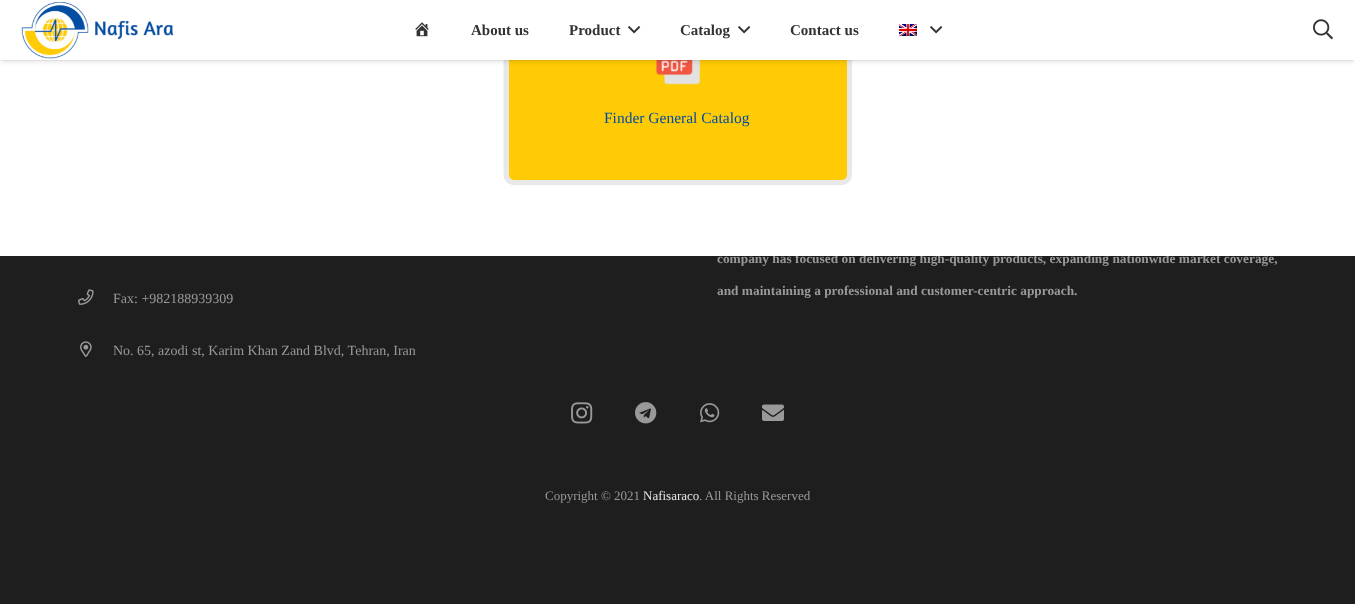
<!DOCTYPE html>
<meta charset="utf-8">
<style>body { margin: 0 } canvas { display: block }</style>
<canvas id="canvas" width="1355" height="604"></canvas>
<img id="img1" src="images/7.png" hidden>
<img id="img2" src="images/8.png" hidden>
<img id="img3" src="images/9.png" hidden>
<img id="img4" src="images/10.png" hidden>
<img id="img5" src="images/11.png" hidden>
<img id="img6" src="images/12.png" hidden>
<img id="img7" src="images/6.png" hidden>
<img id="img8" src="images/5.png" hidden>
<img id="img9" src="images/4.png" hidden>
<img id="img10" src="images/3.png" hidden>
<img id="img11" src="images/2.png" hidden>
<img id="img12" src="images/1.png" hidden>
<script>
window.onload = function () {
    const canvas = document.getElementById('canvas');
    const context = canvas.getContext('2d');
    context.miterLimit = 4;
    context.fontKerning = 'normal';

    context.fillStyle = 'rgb(30, 30, 30)';
    context.fillRect(0, 0, 1355, 604);
    context.drawImage(document.getElementById('img1'), 78, 289, 16, 16);
    context.drawImage(document.getElementById('img2'), 80, 341, 12, 16);
    context.drawImage(document.getElementById('img3'), 571, 402, 22, 22);
    context.drawImage(document.getElementById('img4'), 635, 402, 22, 22);
    context.drawImage(document.getElementById('img5'), 700, 403, 20, 20);
    context.drawImage(document.getElementById('img6'), 762, 404, 22, 17);
    context.wordSpacing = '0.1px';
    context.font = 'bold 13.35px Liberation Serif';
    context.fillStyle = 'rgb(153, 153, 153)';
    context.fillText('company has focused on delivering high-quality products, expanding nationwide market coverage,', 717, 263);
    context.fillStyle = 'rgb(255, 255, 255)';
    context.fillRect(0, 60, 1355, 196);
    context.beginPath();
    context.moveTo(841.5, -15);
    context.lineTo(513.5, -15);
    context.bezierCurveTo(509.5, -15, 506, -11.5, 506, -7.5);
    context.lineTo(506, 175);
    context.bezierCurveTo(506, 179, 509.5, 182.5, 513.5, 182.5);
    context.lineTo(841.5, 182.5);
    context.bezierCurveTo(845.5, 182.5, 849, 179, 849, 175);
    context.lineTo(849, -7.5);
    context.bezierCurveTo(849, -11.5, 845.5, -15, 841.5, -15);
    context.closePath();
    context.strokeStyle = 'rgb(232, 232, 232)';
    context.lineWidth = 5;
    context.stroke();
    context.fillStyle = 'rgb(255, 203, 5)';
    context.beginPath();
    context.roundRect(506.5, -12.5, 343, 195, 7.5);
    context.fill();
    context.stroke();
    context.drawImage(document.getElementById('img7'), 656, 60, 45, 25);
    context.fillStyle = 'rgba(0, 0, 0, 0.1)';
    context.filter = 'blur(2.5px)';
    context.beginPath();
    context.rect(1, 4, 1353, 58);
    context.fill();
    context.filter = 'none';
    context.fillStyle = 'rgba(0, 0, 0, 0.05)';
    context.filter = 'blur(0.5px)';
    context.beginPath();
    context.rect(1, 3, 1353, 58);
    context.fill();
    context.filter = 'none';
    context.fillStyle = 'rgb(255, 255, 255)';
    context.fillRect(0, 0, 1355, 60);
    context.drawImage(document.getElementById('img8'), 1313, 19, 20, 21);
    context.drawImage(document.getElementById('img9'), 899, 24, 18, 12);
    context.drawImage(document.getElementById('img10'), 930, 26, 13, 8);
    context.wordSpacing = '0px';
    context.font = 'bold 15px Liberation Serif';
    context.fillStyle = 'rgb(51, 51, 51)';
    context.fillText('Contact us', 790, 35);
    context.fillText('Catalog', 680, 35);
    context.drawImage(document.getElementById('img10'), 738, 26, 13, 8);
    context.fillText('Product', 569, 35);
    context.drawImage(document.getElementById('img10'), 628, 26, 13, 8);
    context.fillText('About us', 471, 35);
    context.drawImage(document.getElementById('img11'), 415, 22, 14, 15);
    context.drawImage(document.getElementById('img12'), 21, 2, 153, 57);
    context.font = '15.5px Liberation Serif';
    context.fillStyle = 'rgb(3, 78, 162)';
    context.fillText('Finder General Catalog', 604, 123);
    context.font = 'bold 13.35px Liberation Serif';
    context.fillStyle = 'rgb(153, 153, 153)';
    context.fillText('and maintaining a professional and customer-centric approach.', 717, 295);
    context.font = '14px Liberation Serif';
    context.fillText('Fax: +982188939309', 113, 303);
    context.fillText('No. 65, azodi st, Karim Khan Zand Blvd, Tehran, Iran', 113, 355);
    context.font = '13px Liberation Serif';
    context.fillText('Copyright © 2021', 545, 500);
    context.fillStyle = 'rgb(229, 229, 229)';
    context.fillText('Nafisaraco', 643, 500);
    context.fillStyle = 'rgb(153, 153, 153)';
    context.fillText('. All Rights Reserved', 699, 500);
};
</script>
